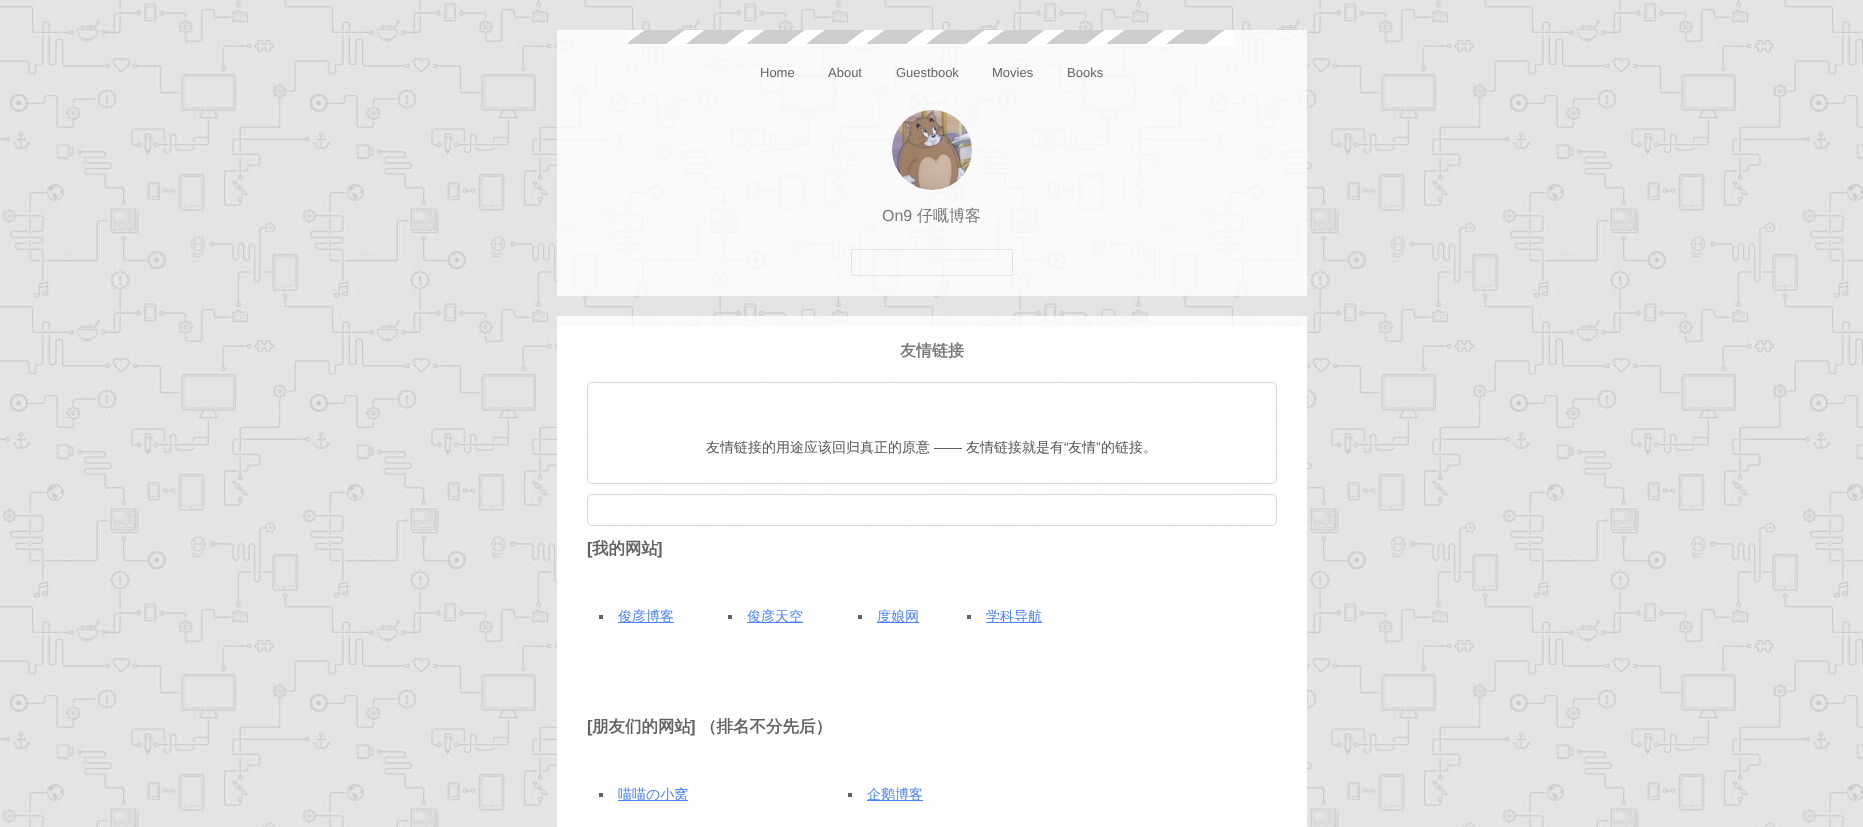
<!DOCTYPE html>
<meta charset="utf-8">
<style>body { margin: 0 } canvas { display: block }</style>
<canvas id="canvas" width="1863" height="827"></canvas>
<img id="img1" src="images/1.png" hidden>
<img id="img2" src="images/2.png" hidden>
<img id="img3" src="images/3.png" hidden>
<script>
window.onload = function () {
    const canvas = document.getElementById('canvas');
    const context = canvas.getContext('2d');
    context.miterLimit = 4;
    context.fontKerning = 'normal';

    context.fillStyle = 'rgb(255, 255, 255)';
    context.fillRect(0, 0, 1863, 827);
    context.drawImage(document.getElementById('img1'), 0, 0, 1863, 827);
    context.fillStyle = 'rgba(255, 255, 255, 0.8)';
    context.fillRect(557, 30, 750, 50);
    context.drawImage(document.getElementById('img2'), 628, 30, 607, 16);
    context.fillRect(557, 80, 750, 216);
    context.drawImage(document.getElementById('img3'), 892, 110, 80, 80);
    context.beginPath();
    context.roundRect(851.5, 249.5, 161, 26, 1.5);
    context.strokeStyle = 'rgba(221, 221, 221, 0.8)';
    context.stroke();
    context.fillRect(557, 316, 750, 511);
    context.fillRect(557, 326, 750, 501);
    context.beginPath();
    context.roundRect(587.5, 382.5, 689, 101, 4.5);
    context.strokeStyle = 'rgb(214, 214, 214)';
    context.stroke();
    context.beginPath();
    context.roundRect(587.5, 494.5, 689, 31, 4.5);
    context.stroke();
    context.fillStyle = 'rgb(98, 98, 98)';
    context.fillRect(599, 615, 4, 4);
    context.fillStyle = 'rgb(78, 132, 255)';
    context.fillRect(618, 622, 56, 1);
    context.fillStyle = 'rgb(98, 98, 98)';
    context.fillRect(728, 615, 4, 4);
    context.fillStyle = 'rgb(78, 132, 255)';
    context.fillRect(747, 622, 56, 1);
    context.fillStyle = 'rgb(98, 98, 98)';
    context.fillRect(858, 615, 4, 4);
    context.fillStyle = 'rgb(73, 127, 250)';
    context.fillRect(877, 622, 42, 1);
    context.fillStyle = 'rgb(98, 98, 98)';
    context.fillRect(967, 615, 4, 4);
    context.fillStyle = 'rgb(78, 132, 255)';
    context.fillRect(986, 622, 56, 1);
    context.fillStyle = 'rgb(98, 98, 98)';
    context.fillRect(599, 793, 4, 4);
    context.fillStyle = 'rgb(78, 132, 255)';
    context.fillRect(618, 800, 70, 1);
    context.fillStyle = 'rgb(98, 98, 98)';
    context.fillRect(848, 793, 4, 4);
    context.fillStyle = 'rgb(73, 127, 250)';
    context.fillRect(867, 800, 56, 1);
    context.font = '13px Liberation Sans';
    context.fillStyle = 'rgb(99, 99, 99)';
    context.fillText('Home', 760, 77);
    context.fillText('About', 828, 77);
    context.fillText('Guestbook', 896, 77);
    context.fillText('Movies', 992, 77);
    context.fillText('Books', 1067, 77);
    context.font = '16px Liberation Sans';
    context.fillStyle = 'rgb(122, 122, 122)';
    context.fillText('On9', 882, 221);
    context.font = '500 16px WenQuanYi Zen Hei';
    context.fillText('仔嘅博客', 917, 221);
    context.font = 'bold 16px WenQuanYi Zen Hei';
    context.fillText('友情链接', 900, 356);
    context.font = '500 14px WenQuanYi Zen Hei';
    context.fillStyle = 'rgb(85, 85, 85)';
    context.fillText('友情链接的用途应该回归真正的原意', 706, 452);
    context.fillText('友情链接就是有', 966, 452);
    context.font = '14px Liberation Sans';
    context.fillText('“', 1064, 452);
    context.font = '500 14px WenQuanYi Zen Hei';
    context.fillText('友情', 1068, 452);
    context.font = '14px Liberation Sans';
    context.fillText('”', 1096, 452);
    context.font = '500 14px WenQuanYi Zen Hei';
    context.fillText('的链接。', 1101, 452);
    context.font = '14px Liberation Sans';
    context.fillText('——', 934, 452);
    context.font = 'bold 16.5px Liberation Sans';
    context.fillStyle = 'rgb(99, 99, 99)';
    context.fillText('[', 587, 554);
    context.font = 'bold 16.5px WenQuanYi Zen Hei';
    context.fillText('我的网站', 592, 554);
    context.font = 'bold 16.5px Liberation Sans';
    context.fillText(']', 657, 554);
    context.font = '500 14px WenQuanYi Zen Hei';
    context.fillStyle = 'rgb(76, 131, 255)';
    context.fillText('俊彦博客', 618, 621);
    context.fillText('俊彦天空', 747, 621);
    context.fillText('度娘网', 877, 621);
    context.fillText('学科导航', 986, 621);
    context.font = 'bold 16.5px Liberation Sans';
    context.fillStyle = 'rgb(99, 99, 99)';
    context.fillText('[', 587, 732);
    context.font = 'bold 16.5px WenQuanYi Zen Hei';
    context.fillText('朋友们的网站', 592, 732);
    context.font = 'bold 16.5px Liberation Sans';
    context.fillText(']', 690, 732);
    context.font = 'bold 16.5px WenQuanYi Zen Hei';
    context.fillText('（排名不分先后）', 700, 732);
    context.font = '500 14px WenQuanYi Zen Hei';
    context.fillStyle = 'rgb(76, 131, 255)';
    context.fillText('喵喵の小窝', 618, 799);
    context.fillText('企鹅博客', 867, 799);
};
</script>
